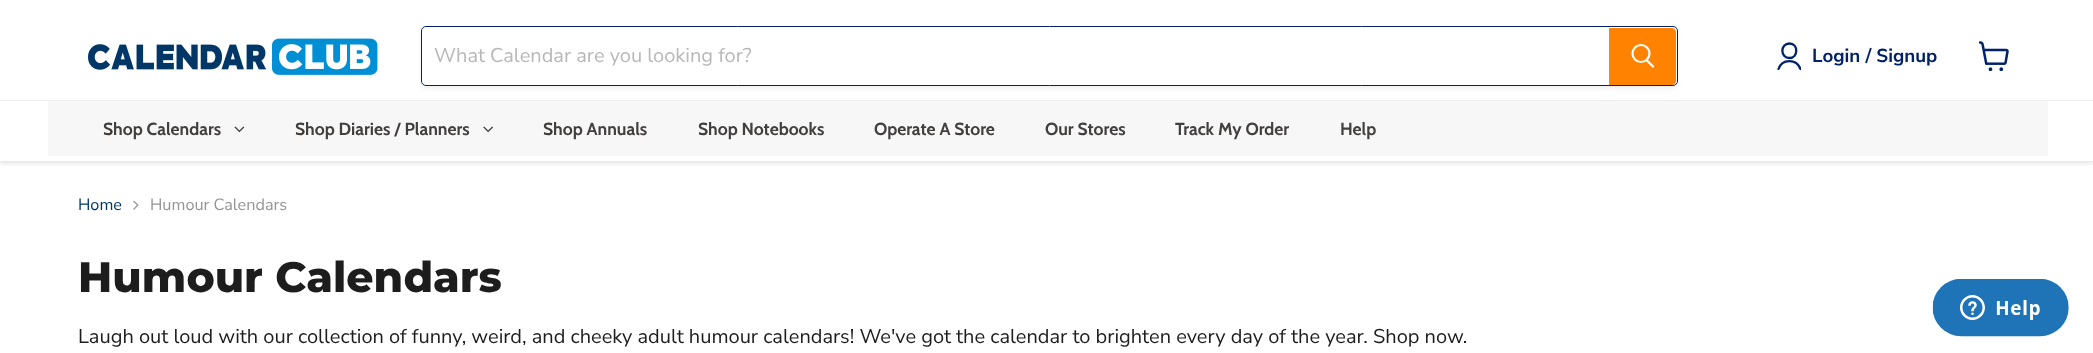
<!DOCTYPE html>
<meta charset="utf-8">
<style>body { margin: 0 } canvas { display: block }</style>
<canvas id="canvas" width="2093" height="353"></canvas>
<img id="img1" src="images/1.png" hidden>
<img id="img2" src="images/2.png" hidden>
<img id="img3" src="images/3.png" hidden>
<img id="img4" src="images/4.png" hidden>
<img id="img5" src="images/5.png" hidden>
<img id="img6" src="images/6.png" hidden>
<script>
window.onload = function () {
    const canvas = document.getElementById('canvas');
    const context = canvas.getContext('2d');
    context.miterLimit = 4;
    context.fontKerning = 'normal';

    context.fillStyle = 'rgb(255, 255, 255)';
    context.fillRect(0, 0, 2093, 353);
    context.save();
    context.beginPath();
    context.rect(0, 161, 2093, 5);
    context.clip();
    context.fillStyle = 'rgba(128, 128, 128, 0.25)';
    context.filter = 'blur(2.5px)';
    context.beginPath();
    context.rect(0, 1, 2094, 162);
    context.fill();
    context.filter = 'none';
    context.restore();
    context.drawImage(document.getElementById('img1'), 88, 38, 290, 37);
    context.save();
    context.beginPath();
    context.moveTo(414, 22);
    context.lineTo(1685, 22);
    context.lineTo(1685, 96);
    context.lineTo(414, 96);
    context.closePath();
    context.moveTo(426, 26);
    context.lineTo(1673, 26);
    context.bezierCurveTo(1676, 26, 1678, 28, 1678, 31);
    context.lineTo(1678, 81);
    context.bezierCurveTo(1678, 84, 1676, 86, 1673, 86);
    context.lineTo(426, 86);
    context.bezierCurveTo(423, 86, 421, 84, 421, 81);
    context.lineTo(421, 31);
    context.bezierCurveTo(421, 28, 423, 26, 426, 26);
    context.closePath();
    context.clip('evenodd');
    context.fillStyle = 'rgba(128, 128, 128, 0.11)';
    context.filter = 'blur(2px)';
    context.beginPath();
    context.roundRect(421, 29, 1257, 60, 5);
    context.fill();
    context.filter = 'none';
    context.restore();
    context.beginPath();
    context.roundRect(421.5, 26.5, 1256, 59, 4.5);
    context.strokeStyle = 'rgb(1, 33, 105)';
    context.stroke();
    context.beginPath();
    context.roundRect(423, 28, 1186, 57, 5);
    context.fill();
    context.fillStyle = 'rgb(255, 130, 0)';
    context.beginPath();
    context.roundRect(1609.5, 28.5, 66, 56, [0, 3.5, 3.5, 0]);
    context.fill();
    context.strokeStyle = 'rgb(255, 130, 0)';
    context.stroke();
    context.beginPath();
    context.moveTo(1653, 66.5);
    context.lineTo(1647, 60.5);
    context.strokeStyle = 'rgb(255, 255, 255)';
    context.lineWidth = 2.2;
    context.lineCap = 'round';
    context.stroke();
    context.beginPath();
    context.arc(1641, 53.5, 8.5, 0, 2 * Math.PI);
    context.stroke();
    context.beginPath();
    context.moveTo(1789.5, 58);
    context.bezierCurveTo(1798.5, 58, 1798.5, 43.5, 1789.5, 43.5);
    context.bezierCurveTo(1780, 43.5, 1780, 58, 1789.5, 58);
    context.closePath();
    context.strokeStyle = 'rgb(1, 33, 105)';
    context.lineWidth = 2.3;
    context.lineJoin = 'round';
    context.stroke();
    context.save();
    context.beginPath();
    context.rect(1776, 41, 25, 30);
    context.clip();
    context.beginPath();
    context.moveTo(1800.5, 69);
    context.bezierCurveTo(1796.5, 58.5, 1782, 58.5, 1778.5, 69);
    context.stroke();
    context.restore();
    context.drawImage(document.getElementById('img2'), 1979, 41, 30, 30);
    context.fillStyle = 'rgb(238, 238, 238)';
    context.fillRect(0, 100, 2093, 1);
    context.fillStyle = 'rgb(247, 247, 247)';
    context.fillRect(48, 101, 2000, 55);
    context.drawImage(document.getElementById('img3'), 234, 126, 11, 7);
    context.drawImage(document.getElementById('img4'), 483, 126, 10, 7);
    context.drawImage(document.getElementById('img5'), 133, 200, 6, 10);
    context.drawImage(document.getElementById('img6'), 1932, 279, 137, 58);
    context.font = '20px Nunito Sans';
    context.fillStyle = 'rgb(184, 184, 184)';
    context.fillText('What Calendar are you looking for?', 434, 62);
    context.font = 'bold 18.75px Nunito Sans';
    context.fillStyle = 'rgb(1, 33, 105)';
    context.fillText('Login / Signup', 1812, 62);
    context.font = 'bold 17.5px Cabin';
    context.fillStyle = 'rgb(66, 63, 63)';
    context.fillText('Shop Calendars', 103, 135);
    context.fillText('Shop Diaries / Planners', 295, 135);
    context.fillText('Shop Annuals', 543, 135);
    context.fillText('Shop Notebooks', 698, 135);
    context.fillText('Operate A Store', 874, 135);
    context.fillText('Our Stores', 1045, 135);
    context.fillText('Track My Order', 1175, 135);
    context.fillText('Help', 1340, 135);
    context.font = '16.25px Nunito Sans';
    context.fillStyle = 'rgb(0, 55, 103)';
    context.fillText('Home', 78, 210);
    context.fillStyle = 'rgb(148, 148, 148)';
    context.fillText('Humour Calendars', 150, 210);
    context.font = '800 42.5px Montserrat';
    context.fillStyle = 'rgb(29, 29, 29)';
    context.fillText('Humour Calendars', 78, 292);
    context.font = '20px Nunito Sans';
    context.fillText('Laugh out loud with our collection of funny, weird, and cheeky adult humour calendars! We\'ve got the calendar to brighten every day of the year. Shop now.', 78, 343);
};
</script>
